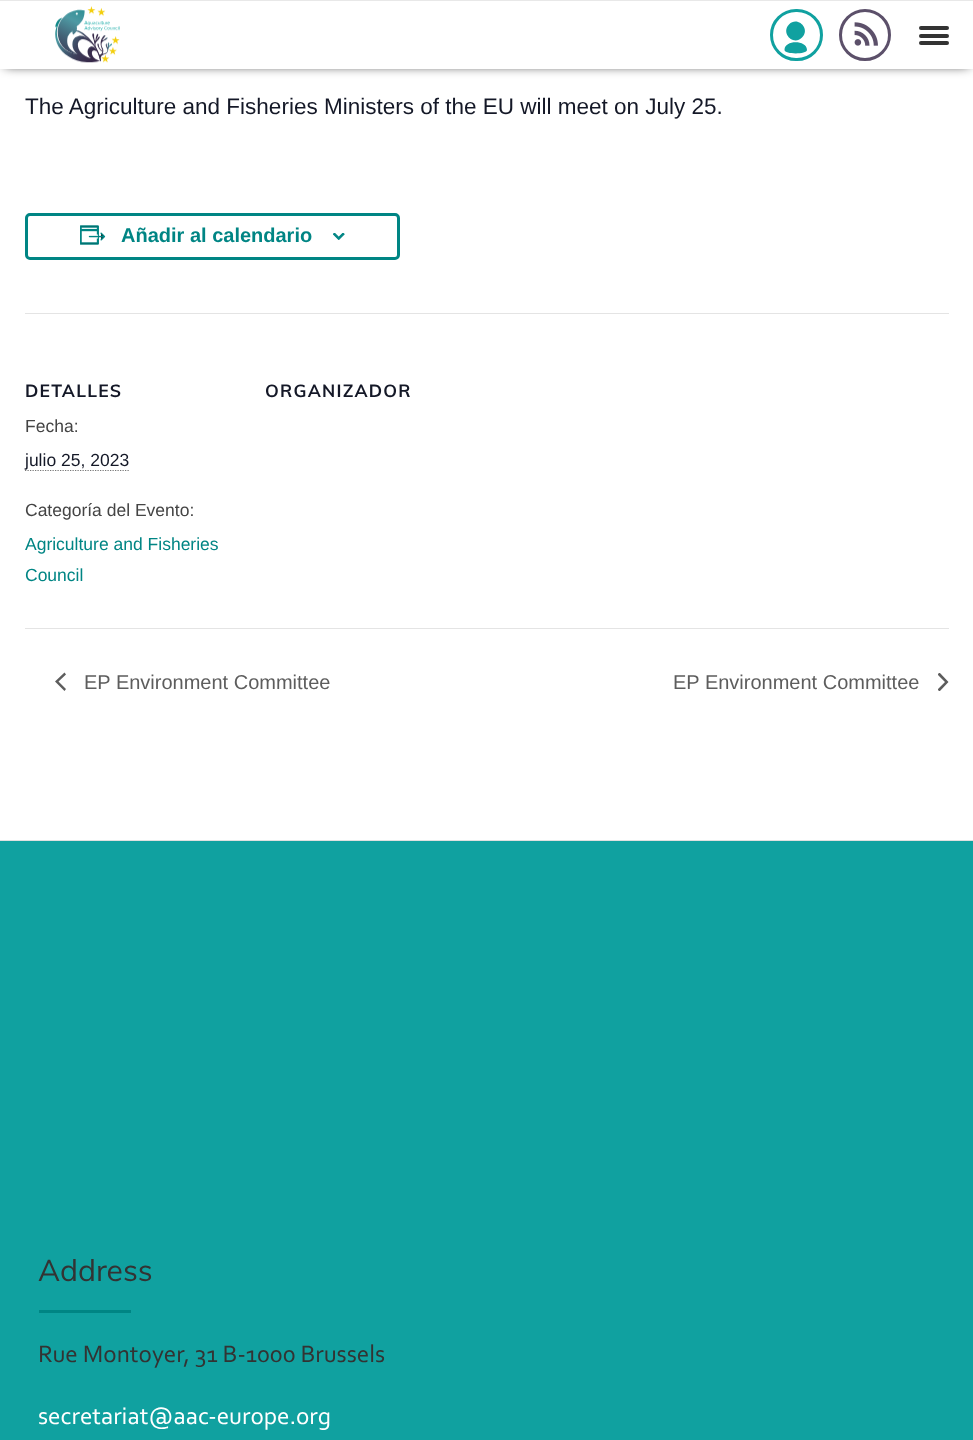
<!DOCTYPE html>
<meta charset="utf-8">
<style>body { margin: 0 } canvas { display: block }</style>
<canvas id="canvas" width="973" height="1440"></canvas>
<img id="img1" src="images/1.png" hidden>
<img id="img2" src="images/2.png" hidden>
<img id="img3" src="images/3.png" hidden>
<img id="img4" src="images/4.png" hidden>
<script>
window.onload = function () {
    const canvas = document.getElementById('canvas');
    const context = canvas.getContext('2d');
    context.miterLimit = 4;
    context.fontKerning = 'normal';

    context.fillStyle = 'rgb(255, 255, 255)';
    context.fillRect(0, 0, 973, 1440);
    context.save();
    context.beginPath();
    context.moveTo(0, 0);
    context.lineTo(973, 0);
    context.lineTo(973, 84);
    context.lineTo(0, 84);
    context.closePath();
    context.moveTo(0, 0);
    context.lineTo(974, 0);
    context.lineTo(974, 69);
    context.lineTo(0, 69);
    context.closePath();
    context.clip('evenodd');
    context.fillStyle = 'rgb(0, 0, 0)';
    context.filter = 'blur(6px)';
    context.beginPath();
    context.rect(5, 6, 964, 59);
    context.fill();
    context.filter = 'none';
    context.restore();
    context.fillStyle = 'rgb(232, 232, 232)';
    context.fillRect(0, 0, 973, 1);
    context.drawImage(document.getElementById('img1'), 55, 6, 65, 57);
    context.beginPath();
    context.roundRect(771.5, 10.5, 50, 49, 24.5);
    context.strokeStyle = 'rgb(16, 161, 160)';
    context.lineWidth = 3;
    context.stroke();
    context.fillStyle = 'rgb(16, 161, 160)';
    context.beginPath();
    context.moveTo(789, 24.5);
    context.bezierCurveTo(797.5, 15.5, 811, 29, 802, 37.5);
    context.bezierCurveTo(793.5, 46.5, 780.5, 33, 789, 24.5);
    context.closePath();
    context.moveTo(784.5, 50);
    context.bezierCurveTo(784.5, 39.5, 807, 40, 807, 50);
    context.bezierCurveTo(807, 54.5, 784.5, 54.5, 784.5, 50);
    context.closePath();
    context.fill();
    context.beginPath();
    context.arc(865, 35, 24.5, 0, 2 * Math.PI);
    context.strokeStyle = 'rgb(92, 80, 106)';
    context.stroke();
    context.drawImage(document.getElementById('img2'), 854, 22, 24, 24);
    context.fillStyle = 'rgb(51, 51, 51)';
    context.beginPath();
    context.roundRect(919, 26, 30, 4, 2);
    context.fill();
    context.beginPath();
    context.roundRect(919, 34, 30, 4, 2);
    context.fill();
    context.beginPath();
    context.roundRect(919, 41, 30, 4, 2);
    context.fill();
    context.beginPath();
    context.roundRect(26.5, 214.5, 372, 44, 3.5);
    context.strokeStyle = 'rgb(0, 133, 132)';
    context.stroke();
    context.drawImage(document.getElementById('img3'), 80, 225, 26, 20);
    context.drawImage(document.getElementById('img4'), 333, 233, 12, 7);
    context.fillStyle = 'rgb(228, 228, 228)';
    context.fillRect(25, 313, 924, 1);
    context.beginPath();
    context.moveTo(25, 470.5);
    context.lineTo(129, 470.5);
    context.strokeStyle = 'rgb(119, 119, 119)';
    context.lineWidth = 1.2;
    context.setLineDash([1.25, 1.25]);
    context.stroke();
    context.fillRect(25, 628, 924, 1);
    context.fillStyle = 'rgb(93, 93, 93)';
    context.beginPath();
    context.moveTo(66, 689);
    context.lineTo(64.5, 691);
    context.lineTo(55, 681.5);
    context.lineTo(64.5, 672.5);
    context.lineTo(66, 674.5);
    context.lineTo(58.5, 681.5);
    context.closePath();
    context.fill();
    context.save();
    context.beginPath();
    context.rect(938, 673, 11, 18);
    context.clip();
    context.beginPath();
    context.moveTo(937.5, 674.5);
    context.lineTo(939.5, 672.5);
    context.lineTo(948.5, 682);
    context.lineTo(939.5, 691.5);
    context.lineTo(937.5, 689.5);
    context.lineTo(945, 682);
    context.closePath();
    context.fill();
    context.restore();
    context.fillStyle = 'rgb(16, 161, 160)';
    context.fillRect(0, 841, 973, 599);
    context.fillStyle = 'rgb(224, 224, 224)';
    context.fillRect(0, 840, 973, 1);
    context.fillStyle = 'rgb(0, 133, 132)';
    context.fillRect(39, 1310, 92, 3);
    context.font = '22.5px Liberation Sans';
    context.fillStyle = 'rgb(20, 24, 39)';
    context.fillText('The Agriculture and Fisheries Ministers of the EU will meet on July 25.', 25, 114);
    context.font = 'bold 20px Liberation Sans';
    context.fillStyle = 'rgb(0, 133, 132)';
    context.fillText('Añadir al calendario', 121, 242);
    context.letterSpacing = '1.25px';
    context.font = 'bold 17.5px Muli';
    context.fillStyle = 'rgb(20, 24, 39)';
    context.fillText('DETALLES', 25, 397);
    context.letterSpacing = '0px';
    context.font = '17.5px Liberation Sans';
    context.fillStyle = 'rgb(68, 68, 68)';
    context.fillText('Fecha:', 25, 432);
    context.fillStyle = 'rgb(20, 24, 39)';
    context.fillText('julio 25, 2023', 25, 466);
    context.fillStyle = 'rgb(68, 68, 68)';
    context.fillText('Categoría del Evento:', 25, 516);
    context.fillStyle = 'rgb(0, 133, 132)';
    context.fillText('Agriculture and Fisheries', 25, 550);
    context.fillText('Council', 25, 581);
    context.letterSpacing = '1.25px';
    context.font = 'bold 17.5px Muli';
    context.fillStyle = 'rgb(20, 24, 39)';
    context.fillText('ORGANIZADOR', 265, 397);
    context.letterSpacing = '0px';
    context.font = '20px Liberation Sans';
    context.fillStyle = 'rgb(93, 93, 93)';
    context.fillText('EP Environment Committee', 84, 689);
    context.fillText('EP Environment Committee', 673, 689);
    context.font = '30px Muli';
    context.fillStyle = 'rgb(51, 51, 51)';
    context.fillText('Address', 38, 1281);
    context.font = '25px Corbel';
    context.fillText('Rue Montoyer, 31 B-1000 Brussels', 38, 1362);
    context.fillStyle = 'rgb(255, 255, 255)';
    context.fillText('secretariat@aac-europe.org', 38, 1424);
};
</script>
